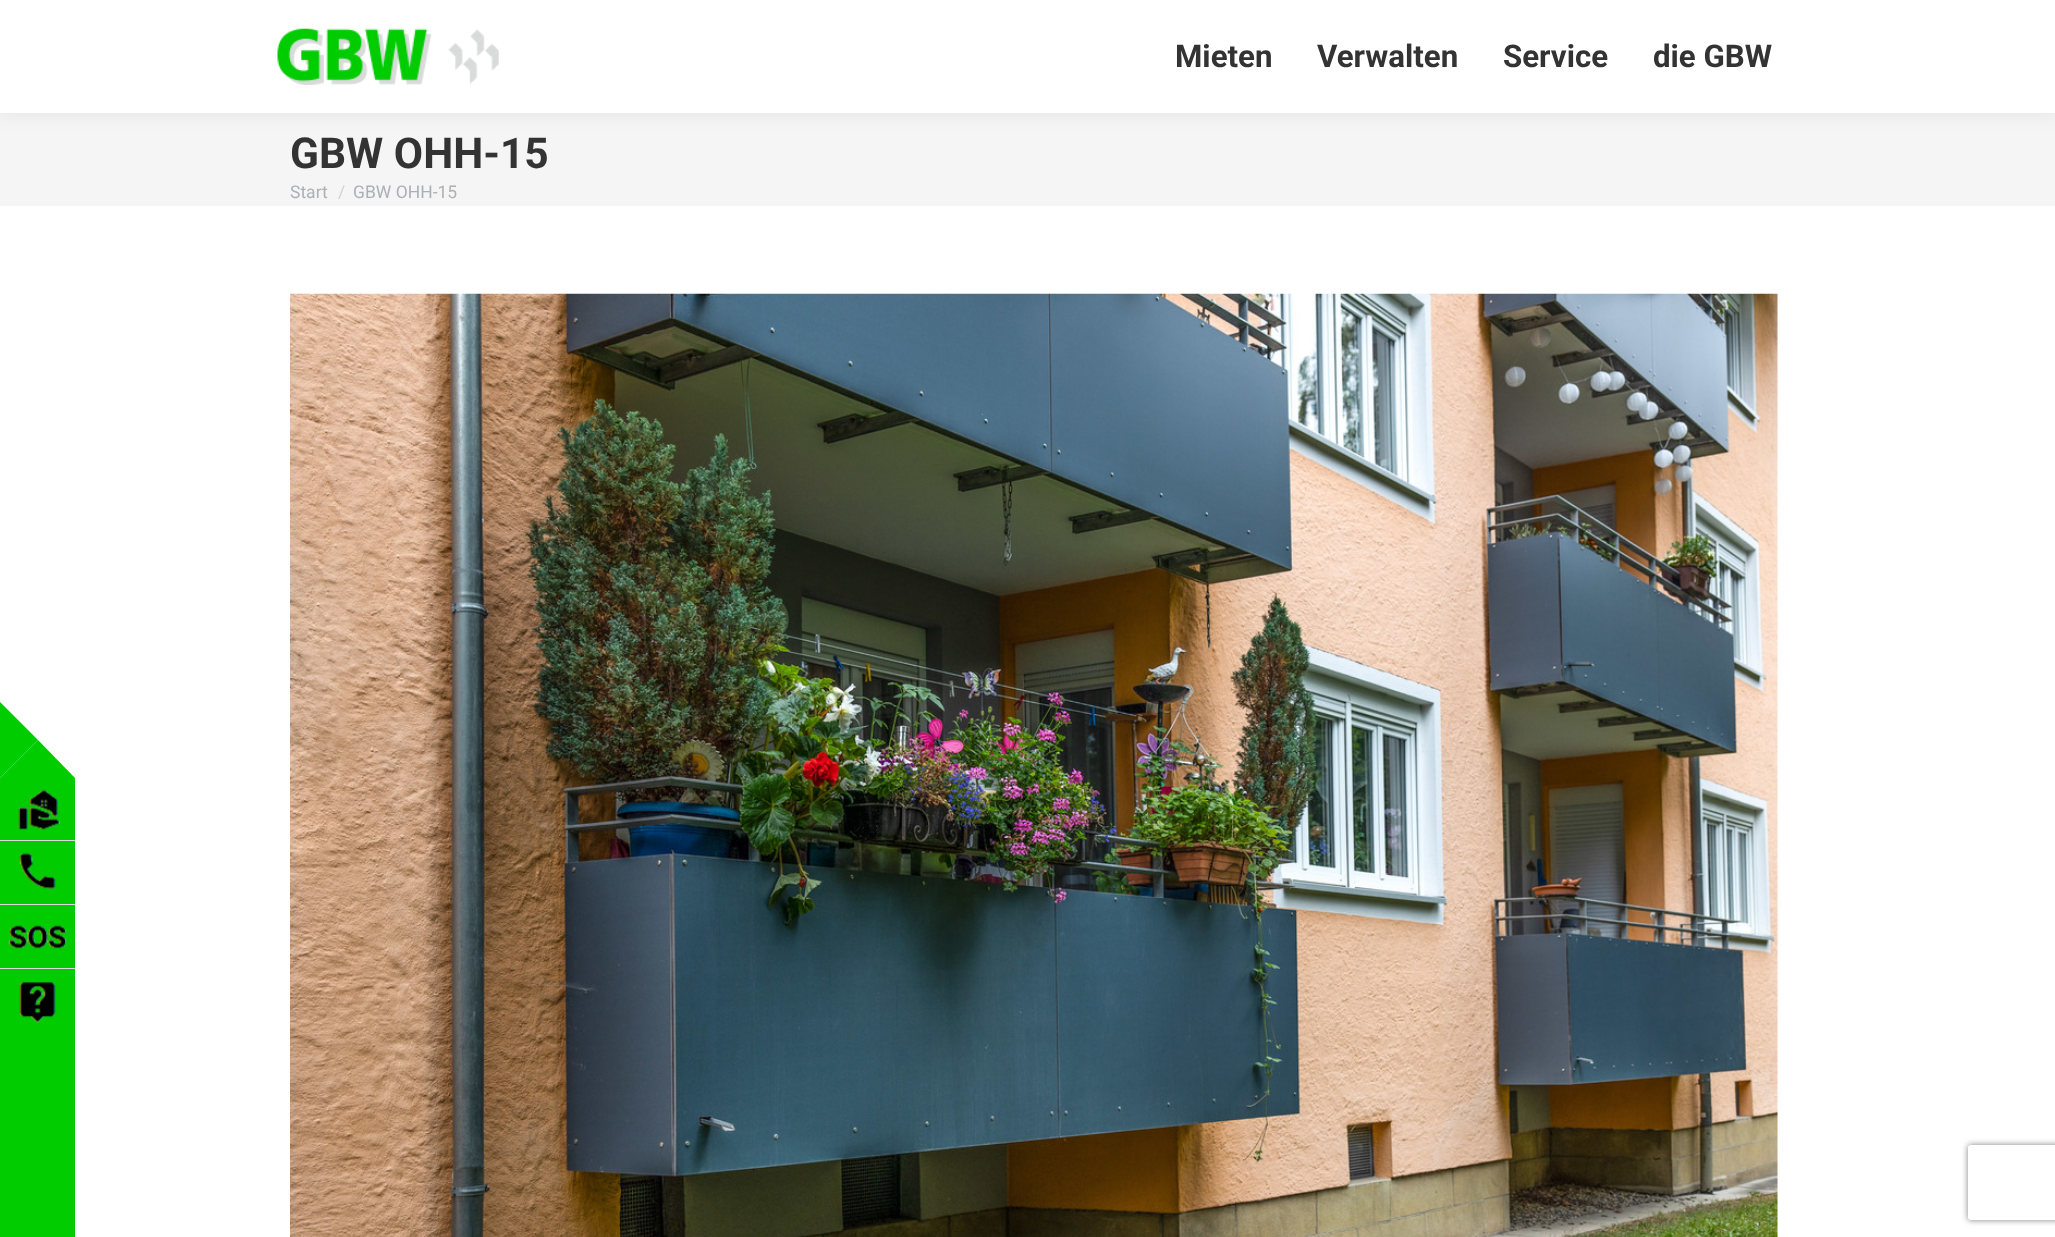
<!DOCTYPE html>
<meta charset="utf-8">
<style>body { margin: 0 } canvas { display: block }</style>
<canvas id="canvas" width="2055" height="1237"></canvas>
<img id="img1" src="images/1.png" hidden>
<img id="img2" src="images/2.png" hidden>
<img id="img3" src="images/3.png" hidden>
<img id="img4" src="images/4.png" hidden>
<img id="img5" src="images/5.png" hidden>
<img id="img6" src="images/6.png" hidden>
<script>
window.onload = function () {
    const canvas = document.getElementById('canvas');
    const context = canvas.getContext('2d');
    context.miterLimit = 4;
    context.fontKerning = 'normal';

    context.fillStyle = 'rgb(255, 255, 255)';
    context.fillRect(0, 0, 2055, 1237);
    context.fillStyle = 'rgb(245, 245, 245)';
    context.fillRect(0, 113, 2055, 93);
    context.fillStyle = 'rgba(0, 0, 0, 0.07)';
    context.filter = 'blur(9.5px)';
    context.beginPath();
    context.rect(-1, -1, 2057, 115);
    context.fill();
    context.filter = 'none';
    context.fillStyle = 'rgb(255, 255, 255)';
    context.fillRect(0, 0, 2055, 113);
    context.drawImage(document.getElementById('img1'), 277, 28, 222, 57);
    context.drawImage(document.getElementById('img2'), 290, 293, 1488, 944);
    context.fillStyle = 'rgb(0, 204, 0)';
    context.fillRect(0, 778, 75, 459);
    context.beginPath();
    context.moveTo(75, 778);
    context.lineTo(0, 778);
    context.lineTo(38, 740);
    context.closePath();
    context.fill();
    context.beginPath();
    context.moveTo(0, 778);
    context.lineTo(0, 702);
    context.lineTo(38, 740);
    context.closePath();
    context.fill();
    context.fillStyle = 'rgb(219, 219, 219)';
    context.fillRect(0, 840, 75, 1);
    context.drawImage(document.getElementById('img3'), 18, 789, 43, 41);
    context.fillRect(0, 904, 75, 1);
    context.drawImage(document.getElementById('img4'), 19, 853, 37, 37);
    context.fillRect(0, 968, 75, 1);
    context.drawImage(document.getElementById('img5'), 8, 925, 59, 24);
    context.drawImage(document.getElementById('img6'), 19, 982, 37, 42);
    context.save();
    context.beginPath();
    context.moveTo(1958, 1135);
    context.lineTo(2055, 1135);
    context.lineTo(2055, 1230);
    context.lineTo(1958, 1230);
    context.closePath();
    context.moveTo(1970.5, 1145);
    context.lineTo(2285.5, 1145);
    context.bezierCurveTo(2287, 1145, 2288, 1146, 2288, 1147.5);
    context.lineTo(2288, 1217.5);
    context.bezierCurveTo(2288, 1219, 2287, 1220, 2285.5, 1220);
    context.lineTo(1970.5, 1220);
    context.bezierCurveTo(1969, 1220, 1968, 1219, 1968, 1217.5);
    context.lineTo(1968, 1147.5);
    context.bezierCurveTo(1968, 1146, 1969, 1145, 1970.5, 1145);
    context.closePath();
    context.clip('evenodd');
    context.fillStyle = 'rgb(128, 128, 128)';
    context.filter = 'blur(3px)';
    context.beginPath();
    context.roundRect(1968, 1145, 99, 75, 2.5);
    context.fill();
    context.filter = 'none';
    context.restore();
    context.font = 'bold 31.25px Roboto';
    context.fillStyle = 'rgb(51, 51, 51)';
    context.fillText('Mieten', 1175, 67);
    context.fillText('Verwalten', 1317, 67);
    context.fillText('Service', 1503, 67);
    context.fillText('die GBW', 1653, 67);
    context.font = 'bold 42.5px Roboto';
    context.fillText('GBW OHH-15', 290, 168);
    context.font = '17.5px Roboto';
    context.fillStyle = 'rgb(173, 175, 179)';
    context.fillText('Start', 290, 198);
    context.fillStyle = 'rgb(209, 210, 212)';
    context.fillText('/', 338, 198);
    context.fillStyle = 'rgb(173, 175, 179)';
    context.fillText('GBW OHH-15', 353, 198);
};
</script>
